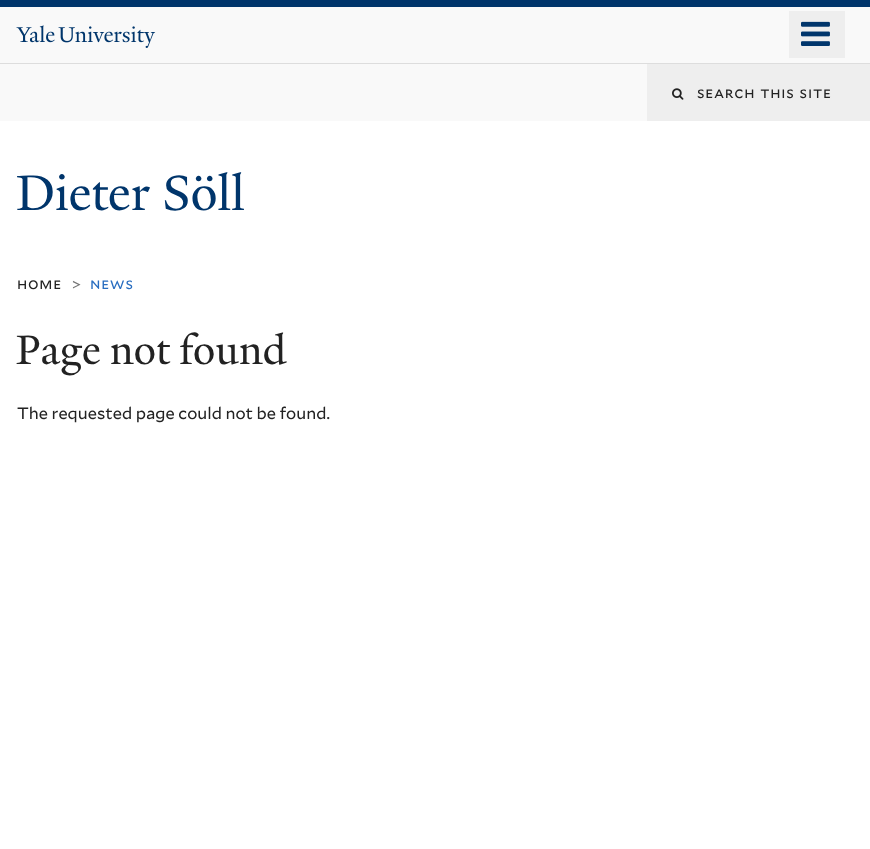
<!DOCTYPE html>
<meta charset="utf-8">
<style>body { margin: 0 } canvas { display: block }</style>
<canvas id="canvas" width="870" height="849"></canvas>
<img id="img1" src="images/1.png" hidden>
<img id="img2" src="images/2.png" hidden>
<img id="img3" src="images/3.png" hidden>
<img id="img4" src="images/4.png" hidden>
<script>
window.onload = function () {
    const canvas = document.getElementById('canvas');
    const context = canvas.getContext('2d');
    context.miterLimit = 4;
    context.fontKerning = 'none';

    context.fillStyle = 'rgb(255, 255, 255)';
    context.fillRect(0, 0, 870, 849);
    context.fillStyle = 'rgb(0, 53, 107)';
    context.fillRect(0, 0, 870, 7);
    context.fillStyle = 'rgb(249, 249, 249)';
    context.fillRect(0, 7, 870, 114);
    context.fillStyle = 'rgb(221, 221, 221)';
    context.fillRect(0, 63, 870, 1);
    context.drawImage(document.getElementById('img1'), 16, 25, 39, 18);
    context.drawImage(document.getElementById('img2'), 58, 26, 98, 22);
    context.fillStyle = 'rgb(238, 238, 238)';
    context.fillRect(789, 11, 56, 47);
    context.drawImage(document.getElementById('img3'), 801, 21, 29, 25);
    context.fillRect(647, 64, 223, 57);
    context.drawImage(document.getElementById('img4'), 672, 88, 12, 12);
    context.letterSpacing = '0.75px';
    context.wordSpacing = '1px';
    context.font = '15.25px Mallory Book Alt';
    context.fillStyle = 'rgb(34, 34, 34)';
    context.fillText('search this site', 697, 98);
    context.letterSpacing = '0px';
    context.wordSpacing = '0px';
    context.font = '53.5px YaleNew';
    context.fillStyle = 'rgb(0, 53, 107)';
    context.fillText('Dieter Söll', 16, 210);
    context.letterSpacing = '0.75px';
    context.font = '15.25px Mallory Book Alt';
    context.fillStyle = 'rgb(34, 34, 34)';
    context.fillText('home', 17, 289);
    context.font = '15.25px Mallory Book';
    context.fillStyle = 'rgb(118, 118, 118)';
    context.fillText('>', 72, 290);
    context.font = '15.25px Mallory Book Alt';
    context.fillStyle = 'rgb(40, 109, 192)';
    context.fillText('news', 90, 289);
    context.letterSpacing = '0px';
    context.wordSpacing = '-1px';
    context.font = '44.5px YaleNew';
    context.fillStyle = 'rgb(34, 34, 34)';
    context.fillText('Page not found', 16, 364);
    context.wordSpacing = '0px';
    context.font = '16.5px Mallory Book';
    context.fillText('The requested page could not be found.', 17, 419);
};
</script>
